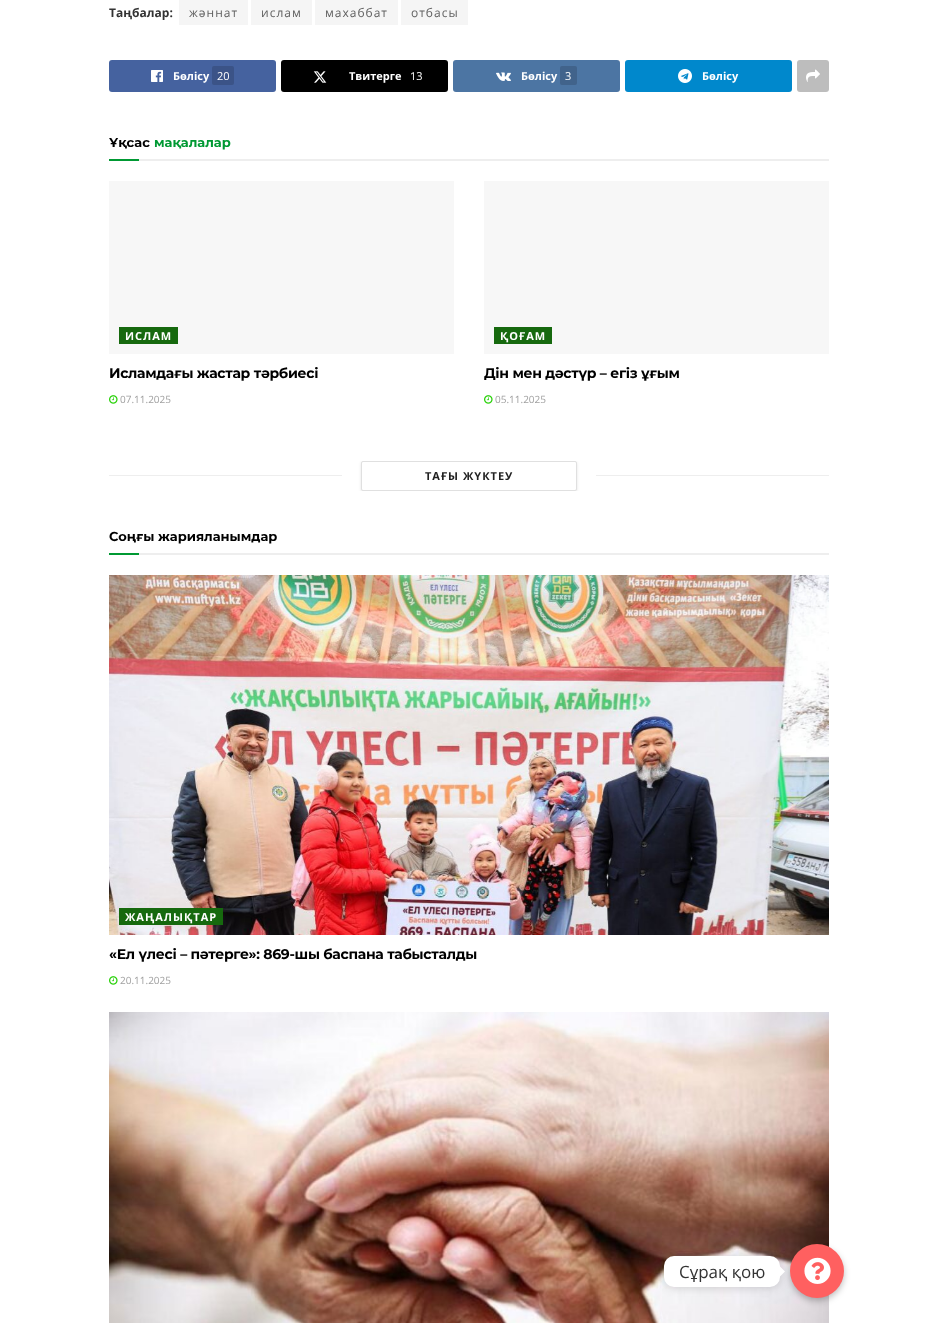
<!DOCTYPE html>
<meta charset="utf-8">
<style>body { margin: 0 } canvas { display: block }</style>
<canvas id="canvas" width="938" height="1323"></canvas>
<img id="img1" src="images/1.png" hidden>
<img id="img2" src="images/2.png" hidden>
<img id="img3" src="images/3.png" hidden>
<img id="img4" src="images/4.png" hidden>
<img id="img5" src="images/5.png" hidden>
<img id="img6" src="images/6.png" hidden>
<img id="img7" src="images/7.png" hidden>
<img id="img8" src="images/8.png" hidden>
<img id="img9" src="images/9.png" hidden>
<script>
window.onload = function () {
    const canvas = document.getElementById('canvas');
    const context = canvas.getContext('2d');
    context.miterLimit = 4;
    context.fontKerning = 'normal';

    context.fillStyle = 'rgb(255, 255, 255)';
    context.fillRect(0, 0, 938, 1323);
    context.fillStyle = 'rgb(245, 245, 245)';
    context.fillRect(179, 0, 69, 25);
    context.fillRect(251, 0, 61, 25);
    context.fillRect(315, 0, 83, 25);
    context.fillRect(401, 0, 67, 25);
    context.fillStyle = 'rgb(69, 98, 159)';
    context.beginPath();
    context.roundRect(109, 60, 167, 32, 3);
    context.fill();
    context.drawImage(document.getElementById('img1'), 151, 70, 12, 12);
    context.fillStyle = 'rgb(59, 83, 135)';
    context.beginPath();
    context.roundRect(212, 66, 22, 19, 2);
    context.fill();
    context.fillStyle = 'rgb(0, 0, 0)';
    context.beginPath();
    context.roundRect(281, 60, 167, 32, 3);
    context.fill();
    context.drawImage(document.getElementById('img2'), 313, 71, 14, 12);
    context.fillStyle = 'rgb(76, 117, 163)';
    context.beginPath();
    context.roundRect(453, 60, 167, 32, 3);
    context.fill();
    context.drawImage(document.getElementById('img3'), 496, 72, 15, 9);
    context.fillStyle = 'rgb(65, 99, 139)';
    context.beginPath();
    context.roundRect(560, 66, 17, 19, 2);
    context.fill();
    context.fillStyle = 'rgb(0, 136, 204)';
    context.beginPath();
    context.roundRect(625, 60, 167, 32, 3);
    context.fill();
    context.drawImage(document.getElementById('img4'), 678, 69, 14, 14);
    context.fillStyle = 'rgb(189, 189, 189)';
    context.beginPath();
    context.roundRect(797, 60, 32, 32, 3);
    context.fill();
    context.drawImage(document.getElementById('img5'), 806, 69, 14, 13);
    context.fillStyle = 'rgb(238, 238, 238)';
    context.fillRect(139, 159, 690, 2);
    context.fillStyle = 'rgb(0, 153, 51)';
    context.fillRect(109, 159, 30, 2);
    context.fillStyle = 'rgb(247, 247, 247)';
    context.fillRect(109, 181, 345, 173);
    context.fillStyle = 'rgb(22, 105, 14)';
    context.fillRect(119, 327, 59, 17);
    context.drawImage(document.getElementById('img6'), 109, 395, 9, 9);
    context.fillStyle = 'rgb(247, 247, 247)';
    context.fillRect(484, 181, 345, 173);
    context.fillStyle = 'rgb(22, 105, 14)';
    context.fillRect(494, 327, 58, 17);
    context.drawImage(document.getElementById('img6'), 484, 395, 9, 9);
    context.save();
    context.beginPath();
    context.rect(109, 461, 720, 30);
    context.clip();
    context.fillStyle = 'rgba(0, 0, 0, 0.1)';
    context.filter = 'blur(1.5px)';
    context.beginPath();
    context.roundRect(361, 462, 216, 30, 2);
    context.fill();
    context.filter = 'none';
    context.restore();
    context.fillStyle = 'rgb(255, 255, 255)';
    context.beginPath();
    context.roundRect(361.5, 461.5, 215, 29, 1.5);
    context.fill();
    context.strokeStyle = 'rgb(224, 224, 224)';
    context.stroke();
    context.fillStyle = 'rgb(238, 238, 238)';
    context.fillRect(109, 475, 233, 1);
    context.fillRect(596, 475, 233, 1);
    context.fillRect(139, 553, 690, 2);
    context.fillStyle = 'rgb(0, 153, 51)';
    context.fillRect(109, 553, 30, 2);
    context.drawImage(document.getElementById('img7'), 109, 575, 720, 360);
    context.fillStyle = 'rgb(22, 105, 14)';
    context.fillRect(119, 908, 104, 17);
    context.drawImage(document.getElementById('img6'), 109, 976, 9, 9);
    context.drawImage(document.getElementById('img8'), 109, 1012, 720, 311);
    context.fillStyle = 'rgba(0, 0, 0, 0.25)';
    context.filter = 'blur(3px)';
    context.beginPath();
    context.roundRect(790, 1247, 54, 54, 27);
    context.fill();
    context.filter = 'none';
    context.fillStyle = 'rgb(255, 96, 96)';
    context.beginPath();
    context.arc(817, 1271, 27, 0, 2 * Math.PI);
    context.fill();
    context.fillStyle = 'rgba(0, 0, 0, 0.15)';
    context.filter = 'blur(4px)';
    context.beginPath();
    context.roundRect(664, 1257, 116, 31, 10);
    context.fill();
    context.filter = 'none';
    context.fillStyle = 'rgb(255, 255, 255)';
    context.beginPath();
    context.roundRect(664, 1256, 116, 31, 10);
    context.fill();
    context.beginPath();
    context.moveTo(780, 1276.5);
    context.lineTo(780, 1266.5);
    context.lineTo(785, 1271.5);
    context.closePath();
    context.fill();
    context.drawImage(document.getElementById('img9'), 804, 1257, 27, 27);
    context.font = 'bold 12px Open Sans';
    context.fillStyle = 'rgb(51, 51, 51)';
    context.fillText('Таңбалар:', 109, 17);
    context.letterSpacing = '1px';
    context.font = '12px Open Sans';
    context.fillStyle = 'rgb(97, 97, 97)';
    context.fillText('жәннат', 189, 17);
    context.fillText('ислам', 261, 17);
    context.fillText('махаббат', 325, 17);
    context.fillText('отбасы', 411, 17);
    context.letterSpacing = '0px';
    context.font = 'bold 11px Open Sans';
    context.fillStyle = 'rgb(255, 255, 255)';
    context.fillText('Бөлісу', 173, 80);
    context.font = '11px Open Sans';
    context.fillText('20', 217, 80);
    context.font = 'bold 11px Open Sans';
    context.fillText('Твитерге', 349, 80);
    context.font = '11px Open Sans';
    context.fillText('13', 410, 80);
    context.font = 'bold 11px Open Sans';
    context.fillText('Бөлісу', 521, 80);
    context.font = '11px Open Sans';
    context.fillText('3', 565, 80);
    context.font = 'bold 11px Open Sans';
    context.fillText('Бөлісу', 702, 80);
    context.font = 'bold 13px Montserrat';
    context.fillStyle = 'rgb(0, 0, 0)';
    context.fillText('Ұқсас', 109, 147);
    context.fillStyle = 'rgb(0, 153, 51)';
    context.fillText('мақалалар', 154, 147);
    context.letterSpacing = '1px';
    context.font = 'bold 11px Open Sans';
    context.fillStyle = 'rgb(255, 255, 255)';
    context.fillText('ИСЛАМ', 125, 340);
    context.letterSpacing = '-0.3px';
    context.font = 'bold 14px Montserrat';
    context.fillStyle = 'rgb(0, 0, 0)';
    context.fillText('Исламдағы жастар тәрбиесі', 109, 378);
    context.letterSpacing = '0px';
    context.font = '10px Open Sans';
    context.fillStyle = 'rgb(160, 160, 160)';
    context.fillText('07.11.2025', 120, 403);
    context.letterSpacing = '1px';
    context.font = 'bold 11px Open Sans';
    context.fillStyle = 'rgb(255, 255, 255)';
    context.fillText('ҚОҒАМ', 500, 340);
    context.letterSpacing = '-0.3px';
    context.font = 'bold 14px Montserrat';
    context.fillStyle = 'rgb(0, 0, 0)';
    context.fillText('Дін мен дәстүр – егіз ұғым', 484, 378);
    context.letterSpacing = '0px';
    context.font = '10px Open Sans';
    context.fillStyle = 'rgb(160, 160, 160)';
    context.fillText('05.11.2025', 495, 403);
    context.letterSpacing = '1px';
    context.font = 'bold 11px Open Sans';
    context.fillStyle = 'rgb(33, 33, 33)';
    context.fillText('ТАҒЫ ЖҮКТЕУ', 425, 480);
    context.letterSpacing = '0px';
    context.font = 'bold 13px Montserrat';
    context.fillStyle = 'rgb(0, 0, 0)';
    context.fillText('Соңғы жарияланымдар', 109, 541);
    context.letterSpacing = '1px';
    context.font = 'bold 11px Open Sans';
    context.fillStyle = 'rgb(255, 255, 255)';
    context.fillText('ЖАҢАЛЫҚТАР', 125, 921);
    context.letterSpacing = '-0.3px';
    context.font = 'bold 14px Montserrat';
    context.fillStyle = 'rgb(0, 0, 0)';
    context.fillText('«Ел үлесі – пәтерге»: 869-шы баспана табысталды', 109, 959);
    context.letterSpacing = '0px';
    context.font = '10px Open Sans';
    context.fillStyle = 'rgb(160, 160, 160)';
    context.fillText('20.11.2025', 120, 984);
    context.font = '17px Open Sans';
    context.fillStyle = 'rgb(51, 51, 51)';
    context.fillText('Сұрақ қою', 679, 1278);
};
</script>
